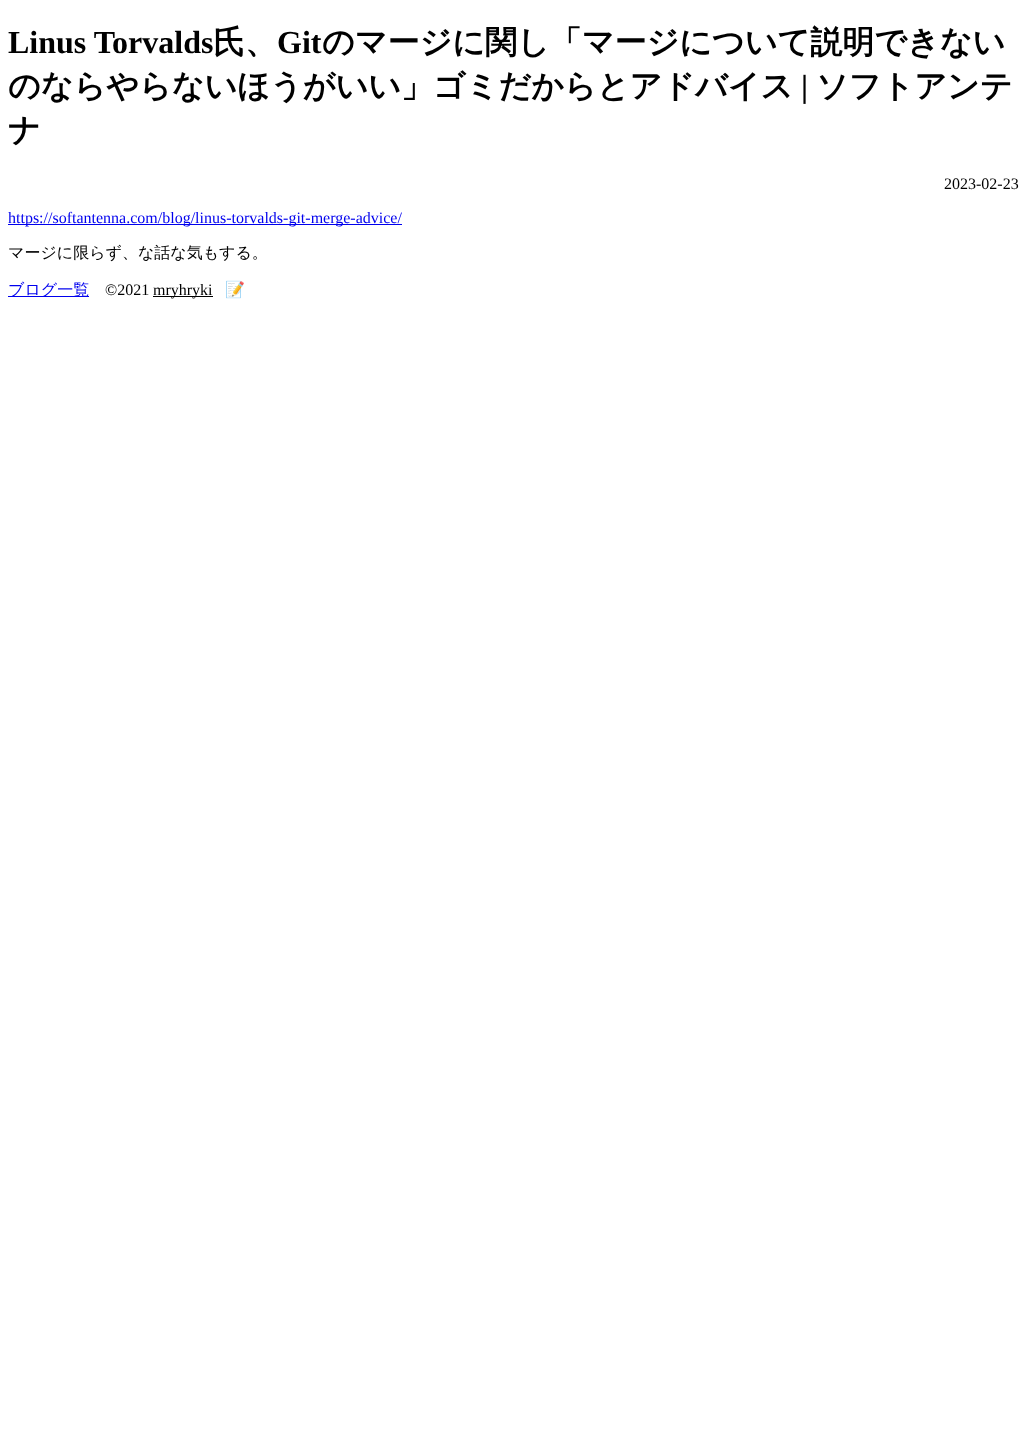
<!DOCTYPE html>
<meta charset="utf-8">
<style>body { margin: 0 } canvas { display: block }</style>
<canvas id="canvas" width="1027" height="1451"></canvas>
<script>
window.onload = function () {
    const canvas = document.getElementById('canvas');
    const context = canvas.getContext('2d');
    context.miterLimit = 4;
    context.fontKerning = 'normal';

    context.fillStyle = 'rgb(255, 255, 255)';
    context.fillRect(0, 0, 1027, 1451);
    context.fillStyle = 'rgb(0, 0, 238)';
    context.fillRect(8, 224, 394, 1);
    context.fillRect(8, 296, 81, 1);
    context.fillStyle = 'rgb(0, 0, 0)';
    context.fillRect(153, 296, 60, 1);
    context.font = 'bold 32px Liberation Serif';
    context.fillText('Linus Torvalds', 8, 53);
    context.font = 'bold 32px WenQuanYi Zen Hei';
    context.fillText('氏、', 213, 53);
    context.font = 'bold 32px Liberation Serif';
    context.fillText('Git', 277, 53);
    context.font = 'bold 32px WenQuanYi Zen Hei';
    context.fillText('のマージに関し「マージについて説明できない', 322, 53);
    context.fillText('のならやらないほうがいい」ゴミだからとアドバイス', 8, 97);
    context.font = 'bold 32px Liberation Serif';
    context.fillText('|', 801, 97);
    context.font = 'bold 32px WenQuanYi Zen Hei';
    context.fillText('ソフトアンテ', 816, 97);
    context.fillText('ナ', 8, 141);
    context.font = '16px Liberation Serif';
    context.fillText('2023-02-23', 944, 189);
    context.fillStyle = 'rgb(0, 0, 238)';
    context.fillText('https://softantenna.com/blog/linus-torvalds-git-merge-advice/', 8, 223);
    context.font = '500 16px WenQuanYi Zen Hei';
    context.fillStyle = 'rgb(0, 0, 0)';
    context.fillText('マージに限らず、な話な気もする。', 8, 258);
    context.fillStyle = 'rgb(0, 0, 238)';
    context.fillText('ブログ一覧', 8, 295);
    context.font = '16px Liberation Serif';
    context.fillStyle = 'rgb(0, 0, 0)';
    context.fillText('©2021', 105, 295);
    context.fillText('mryhryki', 153, 295);
    context.font = '16px Noto Color Emoji';
    context.fillStyle = 'rgb(0, 0, 238)';
    context.fillText('📝', 225, 295);
};
</script>
